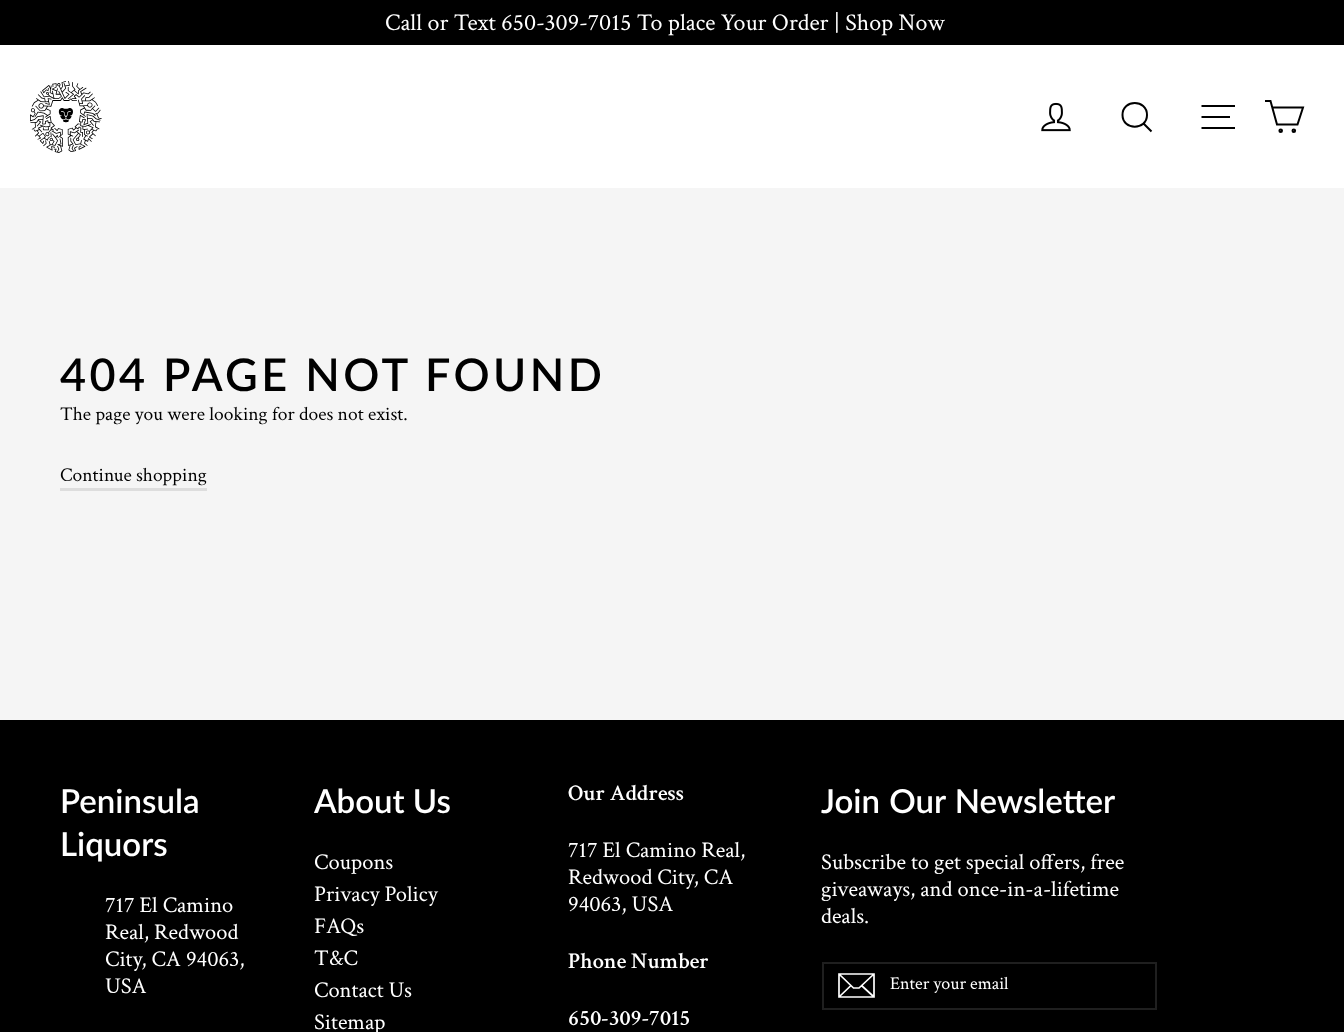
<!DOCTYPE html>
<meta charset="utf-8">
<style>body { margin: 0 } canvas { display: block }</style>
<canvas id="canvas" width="1344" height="1032"></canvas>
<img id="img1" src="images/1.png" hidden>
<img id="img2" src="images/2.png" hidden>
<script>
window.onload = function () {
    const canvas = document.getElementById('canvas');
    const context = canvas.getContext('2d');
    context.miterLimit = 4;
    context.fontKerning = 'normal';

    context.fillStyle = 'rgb(245, 245, 245)';
    context.fillRect(0, 0, 1344, 1032);
    context.fillStyle = 'rgb(0, 0, 0)';
    context.fillRect(0, 0, 1344, 45);
    context.fillStyle = 'rgb(255, 255, 255)';
    context.fillRect(0, 45, 1344, 143);
    context.drawImage(document.getElementById('img1'), 30, 81, 72, 72);
    context.drawImage(document.getElementById('img2'), 1041, 102, 30, 30);
    context.beginPath();
    context.moveTo(1147, 115);
    context.bezierCurveTo(1147, 130.5, 1122.5, 130.5, 1122.5, 115);
    context.bezierCurveTo(1122.5, 99, 1147, 99, 1147, 115);
    context.closePath();
    context.moveTo(1151.5, 131.5);
    context.lineTo(1143.5, 123.5);
    context.strokeStyle = 'rgb(0, 0, 0)';
    context.lineWidth = 2;
    context.stroke();
    context.beginPath();
    context.moveTo(1201.5, 106);
    context.lineTo(1235, 106);
    context.moveTo(1201.5, 117);
    context.lineTo(1230, 117);
    context.moveTo(1201.5, 128);
    context.lineTo(1235, 128);
    context.stroke();
    context.beginPath();
    context.moveTo(1272, 107.5);
    context.lineTo(1303, 107.5);
    context.lineTo(1297.5, 124.5);
    context.lineTo(1277, 124.5);
    context.lineTo(1270.5, 101);
    context.lineTo(1265, 101);
    context.stroke();
    context.beginPath();
    context.arc(1280.7, 130.8, 1.3, 0, 2 * Math.PI);
    context.stroke();
    context.beginPath();
    context.arc(1293.8, 130.8, 1.3, 0, 2 * Math.PI);
    context.stroke();
    context.fillStyle = 'rgb(221, 221, 221)';
    context.fillRect(60, 488, 147, 3);
    context.fillStyle = 'rgb(0, 0, 0)';
    context.fillRect(0, 720, 1344, 312);
    context.strokeStyle = 'rgb(31, 31, 31)';
    context.strokeRect(823, 963, 333, 46);
    context.beginPath();
    context.moveTo(874, 997);
    context.lineTo(839, 997);
    context.lineTo(839, 974);
    context.lineTo(874, 974);
    context.closePath();
    context.moveTo(839, 974);
    context.lineTo(853.5, 988);
    context.lineTo(859, 988);
    context.lineTo(874, 974);
    context.moveTo(851, 985.5);
    context.lineTo(839.5, 996.5);
    context.moveTo(873.5, 996.5);
    context.lineTo(861.5, 985.5);
    context.strokeStyle = 'rgb(255, 255, 255)';
    context.lineWidth = 1.7;
    context.stroke();
    context.font = '24px Crimson Text';
    context.fillStyle = 'rgb(255, 255, 255)';
    context.fillText('Call or Text 650-309-7015 To place Your Order | Shop Now', 385, 30);
    context.letterSpacing = '3.4px';
    context.font = '600 45px Lato';
    context.fillStyle = 'rgb(0, 0, 0)';
    context.fillText('404 PAGE NOT FOUND', 60, 391);
    context.letterSpacing = '0px';
    context.font = '19.5px Crimson Text';
    context.fillText('The page you were looking for does not exist.', 60, 420);
    context.fillText('Continue shopping', 60, 481);
    context.font = '600 33px Lato';
    context.fillStyle = 'rgb(255, 255, 255)';
    context.fillText('Peninsula', 60, 813);
    context.fillText('Liquors', 60, 856);
    context.font = '22.5px Crimson Text';
    context.fillText('717 El Camino', 105, 912);
    context.fillText('Real, Redwood', 105, 939);
    context.fillText('City, CA 94063,', 105, 966);
    context.fillText('USA', 105, 993);
    context.font = '600 33px Lato';
    context.fillText('About Us', 314, 813);
    context.font = '22.5px Crimson Text';
    context.fillText('Coupons', 314, 869);
    context.fillText('Privacy Policy', 314, 901);
    context.fillText('FAQs', 314, 933);
    context.fillText('T&C', 314, 965);
    context.fillText('Contact Us', 314, 997);
    context.fillText('Sitemap', 314, 1029);
    context.font = '600 22.5px Crimson Text';
    context.fillText('Our Address', 568, 800);
    context.font = '22.5px Crimson Text';
    context.fillText('717 El Camino Real,', 568, 857);
    context.fillText('Redwood City, CA', 568, 884);
    context.fillText('94063, USA', 568, 911);
    context.font = '600 22.5px Crimson Text';
    context.fillText('Phone Number', 568, 968);
    context.fillText('650-309-7015', 568, 1025);
    context.wordSpacing = '1px';
    context.font = '600 33px Lato';
    context.fillText('Join Our Newsletter', 821, 813);
    context.wordSpacing = '0px';
    context.font = '22.5px Crimson Text';
    context.fillText('Subscribe to get special offers, free', 821, 869);
    context.fillText('giveaways, and once-in-a-lifetime', 821, 896);
    context.fillText('deals.', 821, 923);
    context.font = '18px Crimson Text';
    context.fillText('Enter your email', 890, 989);
};
</script>
